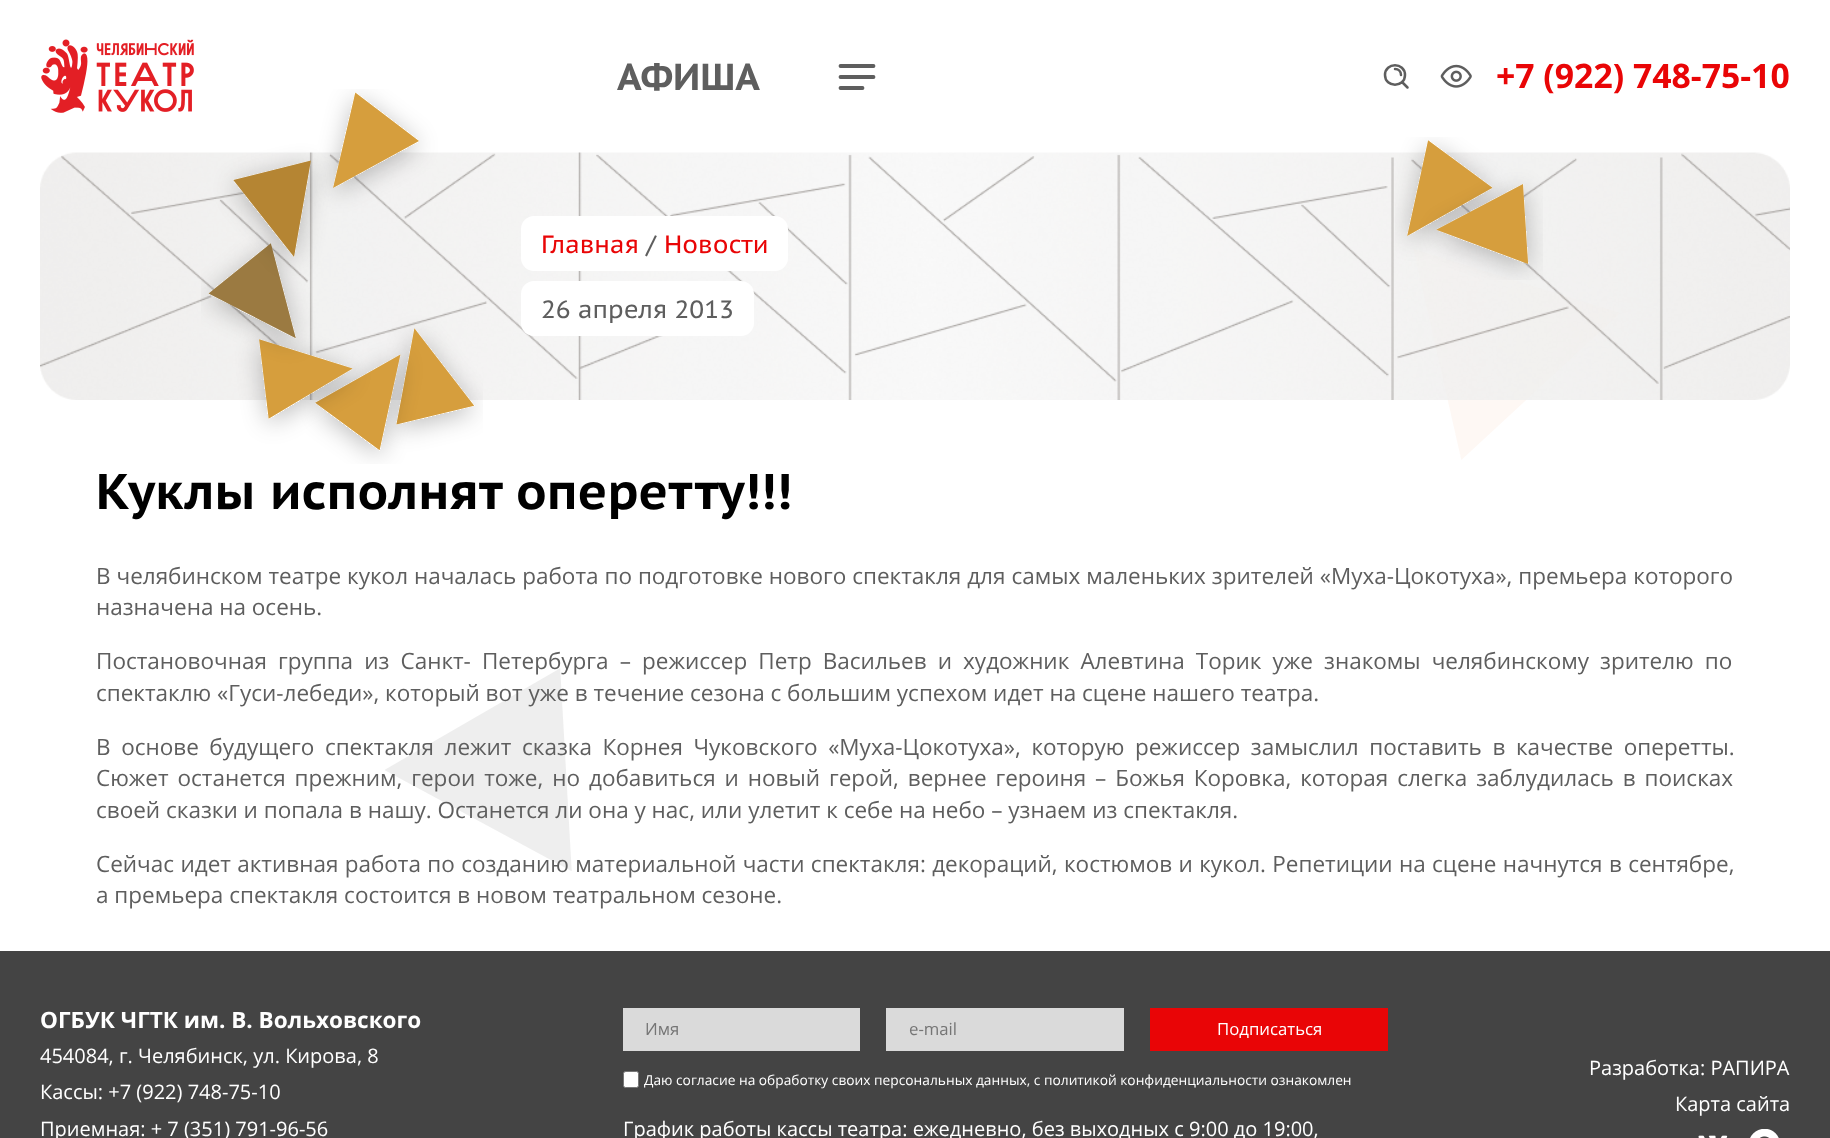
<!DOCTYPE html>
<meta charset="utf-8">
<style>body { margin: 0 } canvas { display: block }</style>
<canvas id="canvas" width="1830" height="1138"></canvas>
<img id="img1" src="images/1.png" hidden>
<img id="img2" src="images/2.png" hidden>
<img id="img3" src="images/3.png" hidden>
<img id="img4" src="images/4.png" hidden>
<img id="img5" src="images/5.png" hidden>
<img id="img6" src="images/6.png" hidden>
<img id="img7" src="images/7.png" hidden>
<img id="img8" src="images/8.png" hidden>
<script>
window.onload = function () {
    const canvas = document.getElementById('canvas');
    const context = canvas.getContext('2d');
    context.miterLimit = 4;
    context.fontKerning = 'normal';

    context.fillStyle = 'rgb(255, 255, 255)';
    context.fillRect(0, 0, 1830, 1138);
    context.drawImage(document.getElementById('img1'), 385, 249, 1235, 622);
    context.drawImage(document.getElementById('img2'), 41, 39, 153, 74);
    context.beginPath();
    context.moveTo(840.5, 77);
    context.lineTo(873.5, 77);
    context.moveTo(840.5, 66);
    context.lineTo(873.5, 66);
    context.moveTo(840.5, 88);
    context.lineTo(862.5, 88);
    context.strokeStyle = 'rgb(94, 94, 94)';
    context.lineWidth = 3.8;
    context.lineCap = 'round';
    context.lineJoin = 'round';
    context.stroke();
    context.beginPath();
    context.moveTo(1407.5, 87.5);
    context.lineTo(1402, 82);
    context.moveTo(1395, 69);
    context.bezierCurveTo(1398.5, 69, 1401, 71.5, 1401, 75);
    context.moveTo(1405, 75);
    context.bezierCurveTo(1405, 88, 1385, 88, 1385, 75);
    context.bezierCurveTo(1385, 62, 1405, 62, 1405, 75);
    context.closePath();
    context.lineWidth = 2.5;
    context.stroke();
    context.drawImage(document.getElementById('img3'), 1440, 64, 32, 24);
    context.drawImage(document.getElementById('img4'), 40, 152, 1750, 248);
    context.drawImage(document.getElementById('img5'), 201, 89, 282, 375);
    context.beginPath();
    context.roundRect(521, 216, 267, 55, 13);
    context.fill();
    context.beginPath();
    context.roundRect(521, 281, 233, 55, 13);
    context.fill();
    context.drawImage(document.getElementById('img6'), 1395, 137, 148, 143);
    context.fillStyle = 'rgb(68, 68, 68)';
    context.fillRect(0, 951, 1830, 187);
    context.fillStyle = 'rgb(218, 218, 218)';
    context.fillRect(623, 1008, 237, 43);
    context.fillRect(886, 1008, 238, 43);
    context.fillStyle = 'rgb(233, 5, 6)';
    context.fillRect(1150, 1008, 238, 43);
    context.fillStyle = 'rgb(255, 255, 255)';
    context.beginPath();
    context.roundRect(623.5, 1071.5, 15, 16, 2);
    context.fill();
    context.strokeStyle = 'rgb(118, 118, 118)';
    context.lineWidth = 1;
    context.lineJoin = 'miter';
    context.stroke();
    context.drawImage(document.getElementById('img7'), 1698, 1135, 30, 3);
    context.drawImage(document.getElementById('img8'), 1750, 1129, 29, 9);
    context.font = 'bold 37.5px PT Sans Caption';
    context.fillStyle = 'rgb(94, 94, 94)';
    context.fillText('АФИША', 617, 90);
    context.font = 'bold 33.75px Open Sans';
    context.fillStyle = 'rgb(233, 5, 6)';
    context.fillText('+7 (922) 748-75-10', 1496, 88);
    context.font = '25px PT Sans Caption';
    context.fillText('Главная', 541, 253);
    context.fillStyle = 'rgb(94, 94, 94)';
    context.fillText('/', 646, 253);
    context.fillStyle = 'rgb(233, 5, 6)';
    context.fillText('Новости', 664, 253);
    context.fillStyle = 'rgb(94, 94, 94)';
    context.fillText('26 апреля 2013', 541, 318);
    context.wordSpacing = '1px';
    context.font = 'bold 50px PT Sans Caption';
    context.fillStyle = 'rgb(0, 0, 0)';
    context.fillText('Куклы исполнят оперетту!!!', 96, 509);
    context.wordSpacing = '0.1px';
    context.font = '22.5px Open Sans';
    context.fillStyle = 'rgb(94, 94, 94)';
    context.fillText('В челябинском театре кукол началась работа по подготовке нового спектакля для самых маленьких зрителей «Муха-Цокотуха», премьера которого', 96, 584);
    context.wordSpacing = '0px';
    context.fillText('назначена на осень.', 96, 615);
    context.wordSpacing = '5.25px';
    context.fillText('Постановочная группа из Санкт- Петербурга – режиссер Петр Васильев и художник Алевтина Торик уже знакомы челябинскому зрителю по', 96, 669);
    context.wordSpacing = '0px';
    context.fillText('спектаклю «Гуси-лебеди», который вот уже в течение сезона с большим успехом идет на сцене нашего театра.', 96, 701);
    context.wordSpacing = '4.75px';
    context.fillText('В основе будущего спектакля лежит сказка Корнея Чуковского «Муха-Цокотуха», которую режиссер замыслил поставить в качестве оперетты.', 96, 755);
    context.wordSpacing = '3.1px';
    context.fillText('Сюжет останется прежним, герои тоже, но добавиться и новый герой, вернее героиня – Божья Коровка, которая слегка заблудилась в поисках', 96, 786);
    context.wordSpacing = '0px';
    context.fillText('своей сказки и попала в нашу. Останется ли она у нас, или улетит к себе на небо – узнаем из спектакля.', 96, 818);
    context.wordSpacing = '0.5px';
    context.fillText('Сейчас идет активная работа по созданию материальной части спектакля: декораций, костюмов и кукол. Репетиции на сцене начнутся в сентябре,', 96, 872);
    context.wordSpacing = '0px';
    context.fillText('а премьера спектакля состоится в новом театральном сезоне.', 96, 903);
    context.font = 'bold 22.5px Open Sans';
    context.fillStyle = 'rgb(255, 255, 255)';
    context.fillText('ОГБУК ЧГТК им. В. Вольховского', 40, 1028);
    context.font = '20px Open Sans';
    context.fillText('454084, г. Челябинск, ул. Кирова, 8', 40, 1063);
    context.fillText('Кассы: +7 (922) 748-75-10', 40, 1099);
    context.fillText('Приемная: + 7 (351) 791-96-56', 40, 1136);
    context.font = '16.75px Open Sans';
    context.fillStyle = 'rgb(117, 117, 117)';
    context.fillText('Имя', 645, 1035);
    context.fillText('e-mail', 909, 1035);
    context.fillStyle = 'rgb(255, 255, 255)';
    context.fillText('Подписаться', 1217, 1035);
    context.font = '13.75px Open Sans';
    context.fillText('Даю согласие на обработку своих персональных данных, с политикой конфиденциальности ознакомлен', 644, 1085);
    context.font = '20px Open Sans';
    context.fillText('График работы кассы театра: ежедневно, без выходных с 9:00 до 19:00,', 623, 1136);
    context.fillText('Разработка: РАПИРА', 1589, 1075);
    context.fillText('Карта сайта', 1675, 1111);
};
</script>
